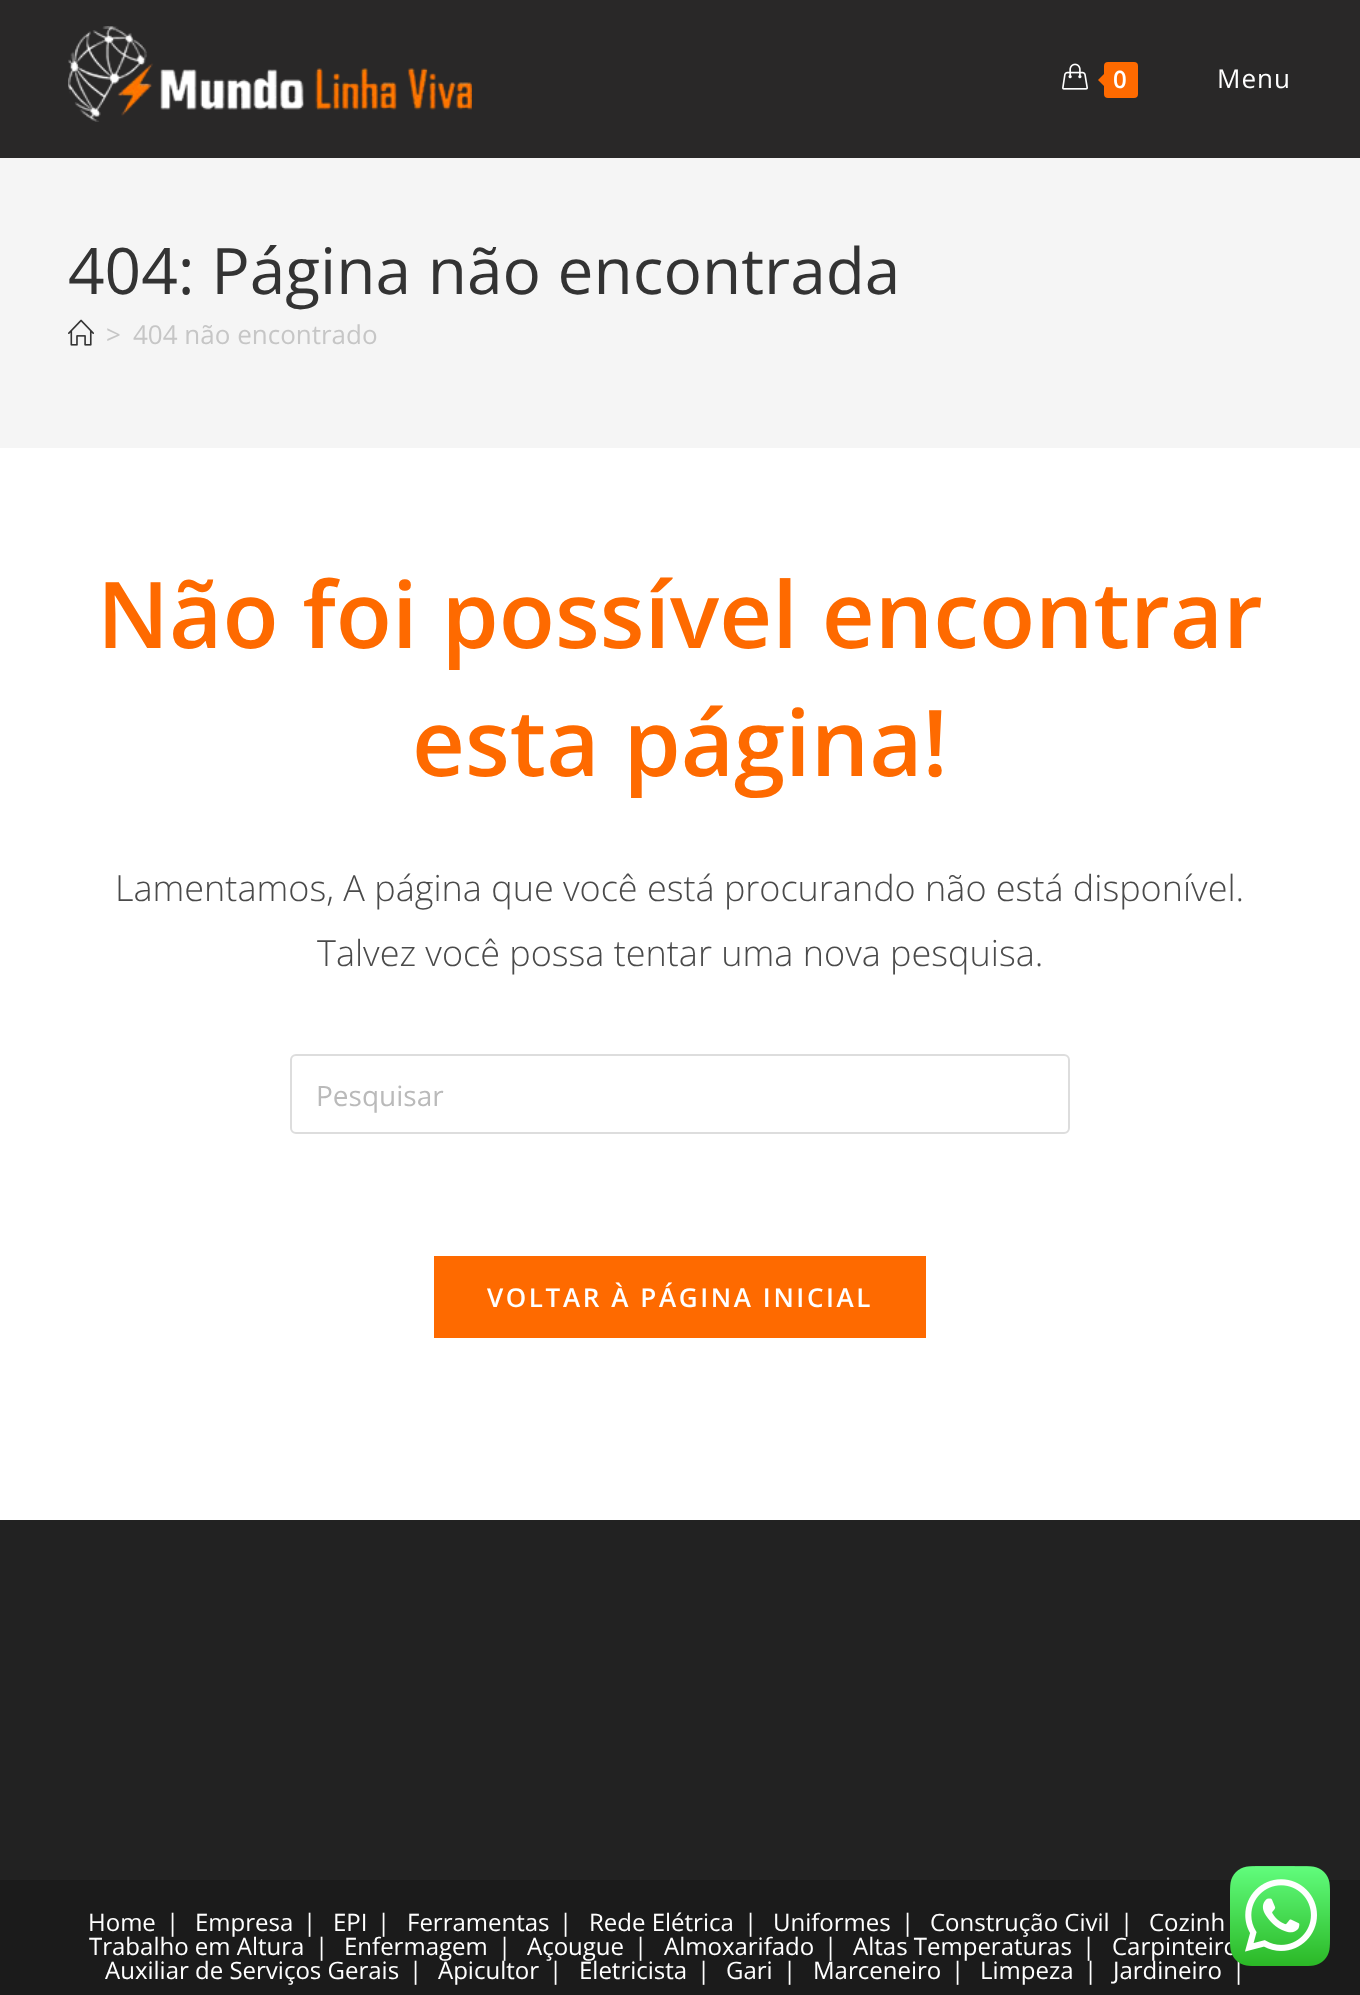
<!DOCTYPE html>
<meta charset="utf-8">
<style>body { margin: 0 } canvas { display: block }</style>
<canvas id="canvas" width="1360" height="1995"></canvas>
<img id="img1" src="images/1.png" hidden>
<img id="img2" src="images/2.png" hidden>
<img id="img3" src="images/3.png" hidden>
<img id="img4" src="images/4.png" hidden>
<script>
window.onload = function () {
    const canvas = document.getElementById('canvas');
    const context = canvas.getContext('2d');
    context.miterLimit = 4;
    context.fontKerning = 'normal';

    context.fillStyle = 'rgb(255, 255, 255)';
    context.fillRect(0, 0, 1360, 1995);
    context.fillStyle = 'rgb(41, 40, 40)';
    context.fillRect(0, 0, 1360, 158);
    context.drawImage(document.getElementById('img1'), 68, 26, 404, 96);
    context.drawImage(document.getElementById('img2'), 1062, 63, 26, 27);
    context.fillStyle = 'rgb(254, 106, 0)';
    context.beginPath();
    context.roundRect(1104, 62, 34, 36, 4);
    context.fill();
    context.beginPath();
    context.moveTo(1108, 70);
    context.lineTo(1108, 90);
    context.lineTo(1098, 80);
    context.closePath();
    context.fill();
    context.fillStyle = 'rgb(245, 245, 245)';
    context.fillRect(0, 158, 1360, 290);
    context.drawImage(document.getElementById('img3'), 68, 319, 26, 27);
    context.beginPath();
    context.roundRect(291, 1055, 778, 78, 5);
    context.strokeStyle = 'rgb(221, 221, 221)';
    context.lineWidth = 2;
    context.stroke();
    context.fillStyle = 'rgb(254, 106, 0)';
    context.fillRect(434, 1256, 492, 82);
    context.fillStyle = 'rgb(34, 34, 34)';
    context.fillRect(0, 1520, 1360, 360);
    context.fillStyle = 'rgb(27, 27, 27)';
    context.fillRect(0, 1880, 1360, 115);
    context.letterSpacing = '1px';
    context.font = '600 24px Open Sans';
    context.fillStyle = 'rgb(255, 255, 255)';
    context.fillText('0', 1113, 88);
    context.font = '26px Open Sans';
    context.fillText('Menu', 1217, 88);
    context.letterSpacing = '0px';
    context.font = '64px Open Sans';
    context.fillStyle = 'rgb(51, 51, 51)';
    context.fillText('404: Página não encontrada', 68, 294);
    context.font = '26px Open Sans';
    context.fillStyle = 'rgb(198, 198, 198)';
    context.fillText('>', 106, 344);
    context.fillText('404 não encontrado', 133, 344);
    context.font = '600 92px Open Sans';
    context.fillStyle = 'rgb(254, 106, 0)';
    context.fillText('Não foi possível encontrar', 97, 648);
    context.fillText('esta página!', 412, 776);
    context.font = '300 36px Open Sans';
    context.fillStyle = 'rgb(74, 74, 74)';
    context.fillText('Lamentamos, A página que você está procurando não está disponível.', 115, 901);
    context.fillText('Talvez você possa tentar uma nova pesquisa.', 317, 966);
    context.font = '28px Open Sans';
    context.fillStyle = 'rgb(186, 186, 186)';
    context.fillText('Pesquisar', 316, 1106);
    context.letterSpacing = '2.6px';
    context.font = '600 26px Open Sans';
    context.fillStyle = 'rgb(255, 255, 255)';
    context.fillText('VOLTAR À PÁGINA INICIAL', 487, 1307);
    context.letterSpacing = '0px';
    context.font = '24px Open Sans';
    context.fillText('Home', 88, 1931);
    context.fillText('|', 166, 1931);
    context.fillText('Empresa', 195, 1931);
    context.fillText('|', 303, 1931);
    context.fillText('EPI', 333, 1931);
    context.fillText('|', 377, 1931);
    context.fillText('Ferramentas', 407, 1931);
    context.fillText('|', 559, 1931);
    context.fillText('Rede Elétrica', 589, 1931);
    context.fillText('|', 744, 1931);
    context.fillText('Uniformes', 773, 1931);
    context.fillText('|', 901, 1931);
    context.fillText('Construção Civil', 930, 1931);
    context.fillText('|', 1120, 1931);
    context.fillText('Cozinh', 1149, 1931);
    context.fillText('Trabalho em Altura', 89, 1955);
    context.fillText('|', 315, 1955);
    context.fillText('Enfermagem', 344, 1955);
    context.fillText('|', 498, 1955);
    context.fillText('Açougue', 527, 1955);
    context.fillText('|', 634, 1955);
    context.fillText('Almoxarifado', 664, 1955);
    context.fillText('|', 824, 1955);
    context.fillText('Altas Temperaturas', 853, 1955);
    context.fillText('|', 1082, 1955);
    context.fillText('Carpinteiro', 1112, 1955);
    context.fillText('Auxiliar de Serviços Gerais', 105, 1979);
    context.fillText('|', 409, 1979);
    context.fillText('Apicultor', 438, 1979);
    context.fillText('|', 549, 1979);
    context.fillText('Eletricista', 579, 1979);
    context.fillText('|', 697, 1979);
    context.fillText('Gari', 726, 1979);
    context.fillText('|', 783, 1979);
    context.fillText('Marceneiro', 813, 1979);
    context.fillText('|', 951, 1979);
    context.fillText('Limpeza', 980, 1979);
    context.fillText('|', 1084, 1979);
    context.fillText('Jardineiro', 1113, 1979);
    context.fillText('|', 1232, 1979);
    context.drawImage(document.getElementById('img4'), 1230, 1866, 100, 100);
};
</script>
